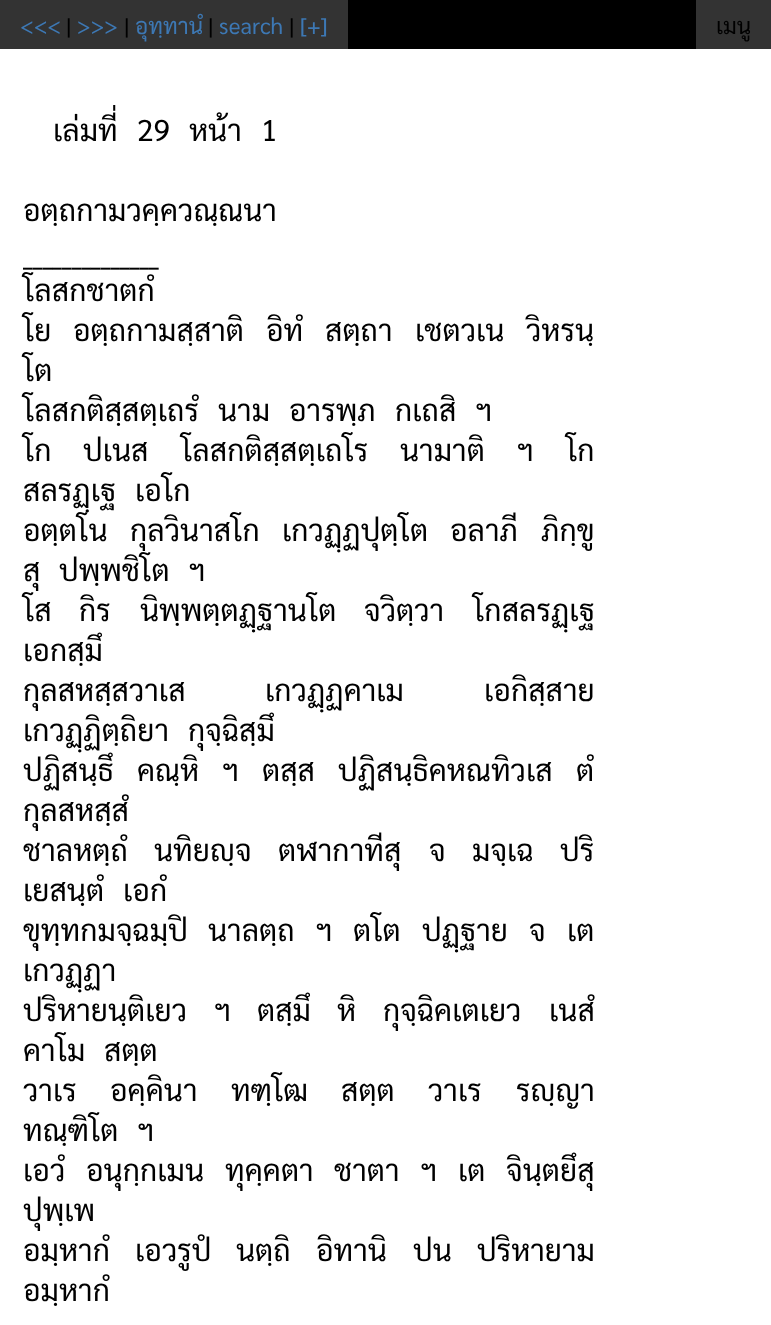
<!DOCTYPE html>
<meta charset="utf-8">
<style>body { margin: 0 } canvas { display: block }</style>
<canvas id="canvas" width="771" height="1325"></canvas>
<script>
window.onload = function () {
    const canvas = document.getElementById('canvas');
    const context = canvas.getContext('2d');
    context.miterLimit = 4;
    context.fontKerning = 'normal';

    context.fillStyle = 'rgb(255, 255, 255)';
    context.fillRect(0, 0, 771, 1325);
    context.fillStyle = 'rgb(0, 0, 0)';
    context.fillRect(348, 0, 348, 49);
    context.fillStyle = 'rgb(51, 51, 51)';
    context.fillRect(0, 0, 348, 49);
    context.fillRect(696, 0, 75, 49);
    context.font = '22.5px Sarabun';
    context.fillStyle = 'rgb(61, 120, 180)';
    context.fillText('<<<', 20, 34);
    context.fillStyle = 'rgb(0, 0, 0)';
    context.fillText('|', 66, 34);
    context.fillStyle = 'rgb(61, 120, 180)';
    context.fillText('>>>', 77, 34);
    context.fillStyle = 'rgb(0, 0, 0)';
    context.fillText('|', 124, 34);
    context.fillStyle = 'rgb(61, 120, 180)';
    context.fillText('อุทฺทานํ', 135, 34);
    context.fillStyle = 'rgb(0, 0, 0)';
    context.fillText('|', 208, 34);
    context.fillStyle = 'rgb(61, 120, 180)';
    context.fillText('search', 219, 34);
    context.fillStyle = 'rgb(0, 0, 0)';
    context.fillText('|', 289, 34);
    context.fillStyle = 'rgb(61, 120, 180)';
    context.fillText('[+]', 300, 34);
    context.fillStyle = 'rgb(0, 0, 0)';
    context.fillText('เมนู', 716, 34);
    context.font = '30px Sarabun';
    context.fillText('เล่มที่', 53, 141);
    context.fillText('29', 137, 141);
    context.fillText('หน้า', 189, 141);
    context.fillText('1', 261, 141);
    context.fillText('อตฺถกามวคฺควณฺณนา', 23, 221);
    context.fillText('______________', 23, 261);
    context.fillText('โลสกชาตกํ', 23, 301);
    context.fillText('โย', 23, 341);
    context.fillText('อตฺถกามสฺสาติ', 73, 341);
    context.fillText('อิทํ', 266, 341);
    context.fillText('สตฺถา', 325, 341);
    context.fillText('เชตวเน', 415, 341);
    context.fillText('วิหรนฺ', 526, 341);
    context.fillText('โต', 23, 381);
    context.fillText('โลสกติสฺสตฺเถรํ', 23, 421);
    context.fillText('นาม', 218, 421);
    context.fillText('อารพฺภ', 289, 421);
    context.wordSpacing = '12px';
    context.fillText('กเถสิ ฯ', 395, 421);
    context.wordSpacing = '0px';
    context.fillText('โก', 23, 461);
    context.fillText('ปเนส', 83, 461);
    context.fillText('โลสกติสฺสตฺเถโร', 181, 461);
    context.wordSpacing = '25px';
    context.fillText('นามาติ ฯ', 400, 461);
    context.wordSpacing = '0px';
    context.fillText('โก', 566, 461);
    context.fillText('สลรฏฺเฐ', 23, 501);
    context.fillText('เอโก', 135, 501);
    context.fillText('อตฺตโน', 23, 541);
    context.fillText('กุลวินาสโก', 130, 541);
    context.fillText('เกวฏฺฏปุตฺโต', 282, 541);
    context.fillText('อลาภี', 450, 541);
    context.fillText('ภิกฺขู', 541, 541);
    context.fillText('สุ', 23, 581);
    context.wordSpacing = '12px';
    context.fillText('ปพฺพชิโต ฯ', 59, 581);
    context.wordSpacing = '0px';
    context.fillText('โส', 23, 621);
    context.fillText('กิร', 79, 621);
    context.fillText('นิพฺพตฺตฏฺฐานโต', 140, 621);
    context.fillText('จวิตฺวา', 364, 621);
    context.fillText('โกสลรฏฺเฐ', 473, 621);
    context.fillText('เอกสฺมึ', 23, 661);
    context.fillText('กุลสหสฺสวาเส', 23, 701);
    context.fillText('เกวฏฺฏคาเม', 265, 701);
    context.fillText('เอกิสฺสาย', 484, 701);
    context.fillText('เกวฏฺฏิตฺถิยา', 23, 741);
    context.fillText('กุจฺฉิสฺมึ', 188, 741);
    context.fillText('ปฏิสนฺธึ', 23, 781);
    context.wordSpacing = '16px';
    context.fillText('คณฺหิ ฯ', 137, 781);
    context.wordSpacing = '0px';
    context.fillText('ตสฺส', 262, 781);
    context.fillText('ปฏิสนฺธิคหณทิวเส', 338, 781);
    context.fillText('ตํ', 576, 781);
    context.fillText('กุลสหสฺสํ', 23, 821);
    context.fillText('ชาลหตฺถํ', 23, 861);
    context.fillText('นทิยญฺจ', 154, 861);
    context.fillText('ตฬากาทีสุ', 278, 861);
    context.fillText('จ', 429, 861);
    context.fillText('มจฺเฉ', 472, 861);
    context.fillText('ปริ', 560, 861);
    context.fillText('เยสนฺตํ', 23, 901);
    context.fillText('เอกํ', 123, 901);
    context.fillText('ขุทฺทกมจฺฉมฺปิ', 23, 941);
    context.wordSpacing = '14px';
    context.fillText('นาลตฺถ ฯ', 208, 941);
    context.wordSpacing = '0px';
    context.fillText('ตโต', 353, 941);
    context.fillText('ปฏฺฐาย', 422, 941);
    context.fillText('จ', 529, 941);
    context.fillText('เต', 567, 941);
    context.fillText('เกวฏฺฏา', 23, 981);
    context.wordSpacing = '20px';
    context.fillText('ปริหายนฺติเยว ฯ', 23, 1021);
    context.wordSpacing = '0px';
    context.fillText('ตสฺมึ', 257, 1021);
    context.fillText('หิ', 337, 1021);
    context.fillText('กุจฺฉิคเตเยว', 383, 1021);
    context.fillText('เนสํ', 549, 1021);
    context.fillText('คาโม', 23, 1061);
    context.fillText('สตฺต', 104, 1061);
    context.fillText('วาเร', 23, 1101);
    context.fillText('อคฺคินา', 110, 1101);
    context.fillText('ทฑฺโฒ', 231, 1101);
    context.fillText('สตฺต', 341, 1101);
    context.fillText('วาเร', 428, 1101);
    context.fillText('รญฺญา', 516, 1101);
    context.wordSpacing = '12px';
    context.fillText('ทณฺฑิโต ฯ', 23, 1141);
    context.wordSpacing = '0px';
    context.fillText('เอวํ', 23, 1181);
    context.fillText('อนุกฺกเมน', 86, 1181);
    context.fillText('ทุคฺคตา', 225, 1181);
    context.wordSpacing = '14px';
    context.fillText('ชาตา ฯ', 334, 1181);
    context.wordSpacing = '0px';
    context.fillText('เต', 458, 1181);
    context.fillText('จินฺตยึสุ', 506, 1181);
    context.fillText('ปุพฺเพ', 23, 1221);
    context.fillText('อมฺหากํ', 23, 1261);
    context.fillText('เอวรูปํ', 135, 1261);
    context.fillText('นตฺถิ', 236, 1261);
    context.fillText('อิทานิ', 316, 1261);
    context.fillText('ปน', 413, 1261);
    context.fillText('ปริหายาม', 477, 1261);
    context.fillText('อมฺหากํ', 23, 1301);
};
</script>
